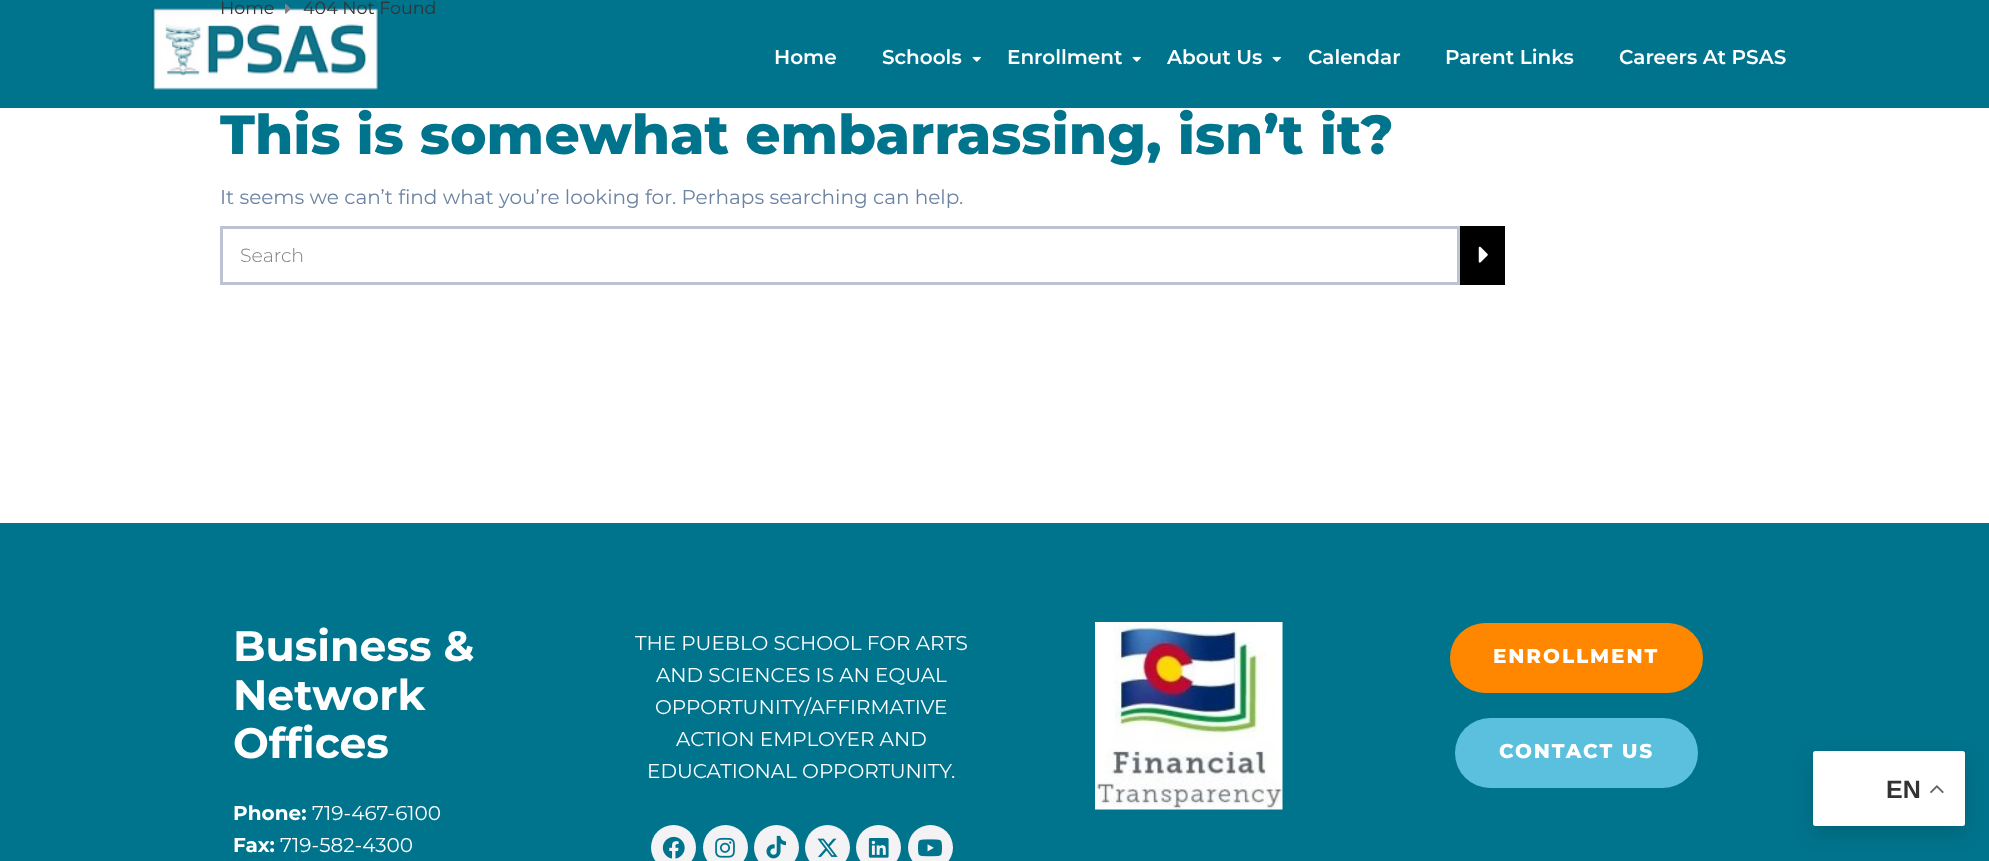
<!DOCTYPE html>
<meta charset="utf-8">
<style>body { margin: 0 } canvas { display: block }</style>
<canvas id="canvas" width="1989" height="861"></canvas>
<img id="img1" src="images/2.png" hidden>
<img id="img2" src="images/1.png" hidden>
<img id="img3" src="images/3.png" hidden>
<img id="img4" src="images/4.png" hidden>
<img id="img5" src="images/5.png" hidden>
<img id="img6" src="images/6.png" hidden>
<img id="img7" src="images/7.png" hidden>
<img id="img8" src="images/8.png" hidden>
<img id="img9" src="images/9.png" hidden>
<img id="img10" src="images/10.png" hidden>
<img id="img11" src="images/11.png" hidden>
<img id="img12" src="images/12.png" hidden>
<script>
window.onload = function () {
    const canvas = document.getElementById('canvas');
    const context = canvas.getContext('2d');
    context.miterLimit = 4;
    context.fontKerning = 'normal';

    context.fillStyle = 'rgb(255, 255, 255)';
    context.fillRect(0, 0, 1989, 861);
    context.fillStyle = 'rgb(0, 116, 140)';
    context.fillRect(0, 0, 1989, 108);
    context.drawImage(document.getElementById('img1'), 152, 8, 227, 82);
    context.drawImage(document.getElementById('img2'), 285, 3, 6, 11);
    context.drawImage(document.getElementById('img3'), 972, 56, 9, 6);
    context.drawImage(document.getElementById('img3'), 1132, 56, 9, 6);
    context.drawImage(document.getElementById('img3'), 1272, 56, 9, 6);
    context.strokeStyle = 'rgb(189, 195, 210)';
    context.lineWidth = 3;
    context.strokeRect(221.5, 227.5, 1237, 56);
    context.fillStyle = 'rgb(0, 0, 0)';
    context.fillRect(1460, 226, 45, 59);
    context.drawImage(document.getElementById('img4'), 1478, 246, 10, 17);
    context.fillStyle = 'rgb(0, 116, 140)';
    context.fillRect(0, 523, 1989, 338);
    context.fillStyle = 'rgb(243, 243, 245)';
    context.beginPath();
    context.arc(673.5, 847.5, 22.5, 0, 2 * Math.PI);
    context.fill();
    context.drawImage(document.getElementById('img5'), 662, 836, 23, 23);
    context.beginPath();
    context.arc(725.5, 847.5, 22.5, 0, 2 * Math.PI);
    context.fill();
    context.drawImage(document.getElementById('img6'), 715, 837, 20, 21);
    context.beginPath();
    context.arc(776.5, 847.5, 22.5, 0, 2 * Math.PI);
    context.fill();
    context.drawImage(document.getElementById('img7'), 766, 835, 20, 24);
    context.beginPath();
    context.arc(827.5, 847.5, 22.5, 0, 2 * Math.PI);
    context.fill();
    context.drawImage(document.getElementById('img8'), 817, 838, 21, 19);
    context.beginPath();
    context.arc(878.5, 847.5, 22.5, 0, 2 * Math.PI);
    context.fill();
    context.drawImage(document.getElementById('img9'), 868, 838, 21, 20);
    context.beginPath();
    context.arc(930.5, 847.5, 22.5, 0, 2 * Math.PI);
    context.fill();
    context.drawImage(document.getElementById('img10'), 918, 839, 24, 18);
    context.drawImage(document.getElementById('img11'), 1095, 622, 188, 188);
    context.fillStyle = 'rgb(255, 135, 0)';
    context.beginPath();
    context.roundRect(1450, 623, 253, 70, 35);
    context.fill();
    context.fillStyle = 'rgb(91, 192, 222)';
    context.beginPath();
    context.roundRect(1455, 718, 243, 70, 35);
    context.fill();
    context.fillStyle = 'rgba(0, 0, 0, 0.15)';
    context.filter = 'blur(9.5px)';
    context.beginPath();
    context.roundRect(1813, 758, 152, 75, 2.5);
    context.fill();
    context.filter = 'none';
    context.fillStyle = 'rgb(255, 255, 255)';
    context.beginPath();
    context.roundRect(1813, 751, 152, 75, 2.5);
    context.fill();
    context.drawImage(document.getElementById('img12'), 1930, 785, 14, 9);
    context.font = '17.5px Montserrat';
    context.fillStyle = 'rgb(51, 51, 51)';
    context.fillText('Home', 220, 14);
    context.fillText('404 Not Found', 303, 14);
    context.font = '600 20px Montserrat';
    context.fillStyle = 'rgb(255, 255, 255)';
    context.fillText('Home', 774, 64);
    context.fillText('Schools', 882, 64);
    context.fillText('Enrollment', 1007, 64);
    context.fillText('About Us', 1167, 64);
    context.fillText('Calendar', 1308, 64);
    context.fillText('Parent Links', 1445, 64);
    context.fillText('Careers At PSAS', 1619, 64);
    context.font = '800 55px Montserrat';
    context.fillStyle = 'rgb(0, 116, 140)';
    context.fillText('This is somewhat embarrassing, isn’t it?', 220, 154);
    context.font = '20px Montserrat';
    context.fillStyle = 'rgb(108, 131, 162)';
    context.fillText('It seems we can’t find what you’re looking for. Perhaps searching can help.', 220, 204);
    context.font = '300 19px Montserrat';
    context.fillStyle = 'rgb(123, 128, 133)';
    context.fillText('Search', 240, 262);
    context.font = 'bold 42.5px Montserrat';
    context.fillStyle = 'rgb(255, 255, 255)';
    context.fillText('Business &', 233, 661);
    context.fillText('Network', 233, 710);
    context.fillText('Offices', 233, 758);
    context.font = 'bold 20px Montserrat';
    context.fillText('Phone:', 233, 820);
    context.font = '20px Montserrat';
    context.fillText('719-467-6100', 312, 820);
    context.font = 'bold 20px Montserrat';
    context.fillText('Fax:', 233, 852);
    context.font = '20px Montserrat';
    context.fillText('719-582-4300', 280, 852);
    context.fillText('THE PUEBLO SCHOOL FOR ARTS', 635, 650);
    context.fillText('AND SCIENCES IS AN EQUAL', 656, 682);
    context.fillText('OPPORTUNITY/AFFIRMATIVE', 655, 714);
    context.fillText('ACTION EMPLOYER AND', 676, 746);
    context.fillText('EDUCATIONAL OPPORTUNITY.', 647, 778);
    context.letterSpacing = '1.9px';
    context.font = '800 20px Montserrat';
    context.fillText('ENROLLMENT', 1493, 663);
    context.fillText('CONTACT US', 1499, 758);
    context.letterSpacing = '0px';
    context.font = 'bold 25px Liberation Sans';
    context.fillStyle = 'rgb(51, 51, 51)';
    context.fillText('EN', 1886, 798);
};
</script>
